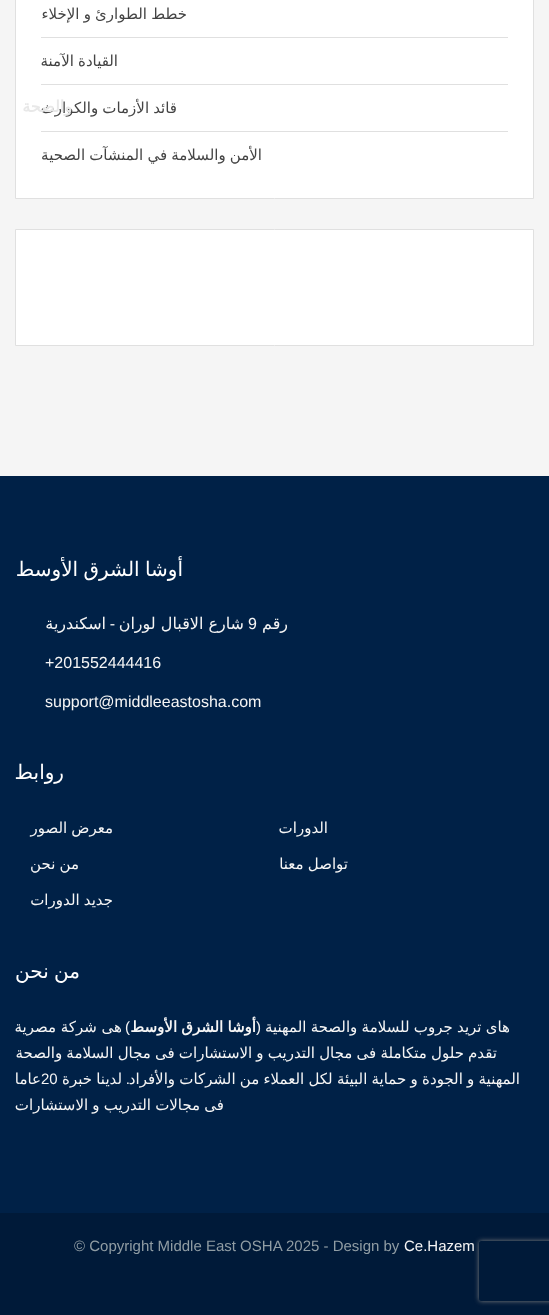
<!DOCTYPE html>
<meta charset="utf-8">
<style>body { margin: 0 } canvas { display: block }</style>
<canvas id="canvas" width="549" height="1315"></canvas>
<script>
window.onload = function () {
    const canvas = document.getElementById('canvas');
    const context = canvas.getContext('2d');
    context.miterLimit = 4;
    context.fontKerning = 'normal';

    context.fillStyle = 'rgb(245, 245, 245)';
    context.fillRect(0, 0, 549, 1315);
    context.fillStyle = 'rgb(255, 255, 255)';
    context.beginPath();
    context.rect(15.5, -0.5, 518, 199);
    context.fill();
    context.strokeStyle = 'rgb(224, 224, 224)';
    context.stroke();
    context.fillStyle = 'rgb(224, 224, 224)';
    context.fillRect(41, 37, 467, 1);
    context.fillRect(41, 84, 467, 1);
    context.fillRect(41, 131, 467, 1);
    context.fillStyle = 'rgb(255, 255, 255)';
    context.beginPath();
    context.rect(15.5, 229.5, 518, 116);
    context.fill();
    context.stroke();
    context.fillStyle = 'rgb(0, 33, 71)';
    context.fillRect(0, 476, 549, 737);
    context.fillStyle = 'rgb(0, 26, 57)';
    context.fillRect(0, 1213, 549, 102);
    context.save();
    context.beginPath();
    context.moveTo(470, 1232);
    context.lineTo(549, 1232);
    context.lineTo(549, 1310);
    context.lineTo(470, 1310);
    context.closePath();
    context.moveTo(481, 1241);
    context.lineTo(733, 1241);
    context.bezierCurveTo(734, 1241, 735, 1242, 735, 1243);
    context.lineTo(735, 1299);
    context.bezierCurveTo(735, 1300, 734, 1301, 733, 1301);
    context.lineTo(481, 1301);
    context.bezierCurveTo(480, 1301, 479, 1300, 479, 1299);
    context.lineTo(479, 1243);
    context.bezierCurveTo(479, 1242, 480, 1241, 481, 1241);
    context.closePath();
    context.clip('evenodd');
    context.fillStyle = 'rgb(128, 128, 128)';
    context.filter = 'blur(2.5px)';
    context.beginPath();
    context.roundRect(479, 1241, 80, 60, 2);
    context.fill();
    context.filter = 'none';
    context.restore();
    context.wordSpacing = '-0.6px';
    context.direction = 'rtl';
    context.font = '15px DejaVu Sans';
    context.fillStyle = 'rgb(68, 68, 68)';
    context.fillText('خطط الطوارئ و الإخلاء', 187, 19);
    context.fillText('القيادة الآمنة', 118, 66);
    context.fillText('قائد الأزمات والكوارث', 177, 113);
    context.fillText('الأمن والسلامة في المنشآت الصحية', 262, 160);
    context.wordSpacing = '-1px';
    context.font = '20px DejaVu Sans';
    context.fillStyle = 'rgb(255, 255, 255)';
    context.fillText('أوشا الشرق الأوسط', 183, 576);
    context.wordSpacing = '0px';
    context.font = '16px DejaVu Sans';
    context.fillStyle = 'rgb(245, 245, 245)';
    context.fillText('رقم', 288, 629);
    context.direction = 'ltr';
    context.font = '16px Liberation Sans';
    context.fillText('9', 248, 629);
    context.direction = 'rtl';
    context.font = '16px DejaVu Sans';
    context.fillText('شارع الاقبال لوران', 244, 629);
    context.font = '16px Liberation Sans';
    context.fillText('-', 115, 629);
    context.font = '16px DejaVu Sans';
    context.fillText('اسكندرية', 106, 629);
    context.direction = 'ltr';
    context.font = '16px Liberation Sans';
    context.fillText('+201552444416', 45, 668);
    context.fillText('support@middleeastosha.com', 45, 707);
    context.direction = 'rtl';
    context.font = '20px DejaVu Sans';
    context.fillStyle = 'rgb(255, 255, 255)';
    context.fillText('روابط', 64, 779);
    context.font = '15px DejaVu Sans';
    context.fillStyle = 'rgb(245, 245, 245)';
    context.fillText('الدورات', 328, 833);
    context.wordSpacing = '-0.6px';
    context.fillText('معرض الصور', 113, 833);
    context.fillText('تواصل معنا', 348, 869);
    context.fillText('من نحن', 79, 869);
    context.fillText('جديد الدورات', 113, 905);
    context.wordSpacing = '-1px';
    context.font = '20px DejaVu Sans';
    context.fillStyle = 'rgb(255, 255, 255)';
    context.fillText('من نحن', 80, 978);
    context.wordSpacing = '-0.5px';
    context.font = '15px DejaVu Sans';
    context.fillStyle = 'rgb(245, 245, 245)';
    context.fillText('هاى تريد جروب للسلامة والصحة المهنية', 510, 1032);
    context.wordSpacing = '0px';
    context.font = '15px Liberation Sans';
    context.fillText('(', 261, 1032);
    context.wordSpacing = '-0.6px';
    context.font = 'bold 15px DejaVu Sans';
    context.fillText('أوشا الشرق الأوسط', 256, 1032);
    context.wordSpacing = '0px';
    context.font = '15px Liberation Sans';
    context.fillText(')', 130, 1032);
    context.font = '15px DejaVu Sans';
    context.fillText('هى شركة مصرية', 122, 1032);
    context.wordSpacing = '-0.6px';
    context.fillText('تقدم حلول متكاملة فى مجال التدريب و الاستشارات فى مجال السلامة والصحة', 497, 1058);
    context.wordSpacing = '-0.5px';
    context.fillText('المهنية و الجودة و حماية البيئة لكل العملاء من الشركات والأفراد', 520, 1084);
    context.wordSpacing = '0px';
    context.font = '15px Liberation Sans';
    context.fillText('.', 130, 1084);
    context.wordSpacing = '-0.5px';
    context.font = '15px DejaVu Sans';
    context.fillText('لدينا خبرة', 122, 1084);
    context.wordSpacing = '0px';
    context.direction = 'ltr';
    context.font = '15px Liberation Sans';
    context.fillText('20', 41, 1084);
    context.direction = 'rtl';
    context.font = '15px DejaVu Sans';
    context.fillText('عاما', 41, 1084);
    context.wordSpacing = '-0.6px';
    context.fillText('فى مجالات التدريب و الاستشارات', 224, 1110);
    context.wordSpacing = '0px';
    context.direction = 'ltr';
    context.font = '15px Liberation Sans';
    context.fillText('Ce.Hazem', 404, 1251);
    context.fillStyle = 'rgb(144, 157, 164)';
    context.fillText('© Copyright Middle East OSHA 2025 - Design by', 74, 1251);
    context.direction = 'rtl';
    context.font = 'bold 16px DejaVu Sans';
    context.fillStyle = 'rgb(232, 232, 232)';
    context.fillText('والصحة', 72, 112);
};
</script>
